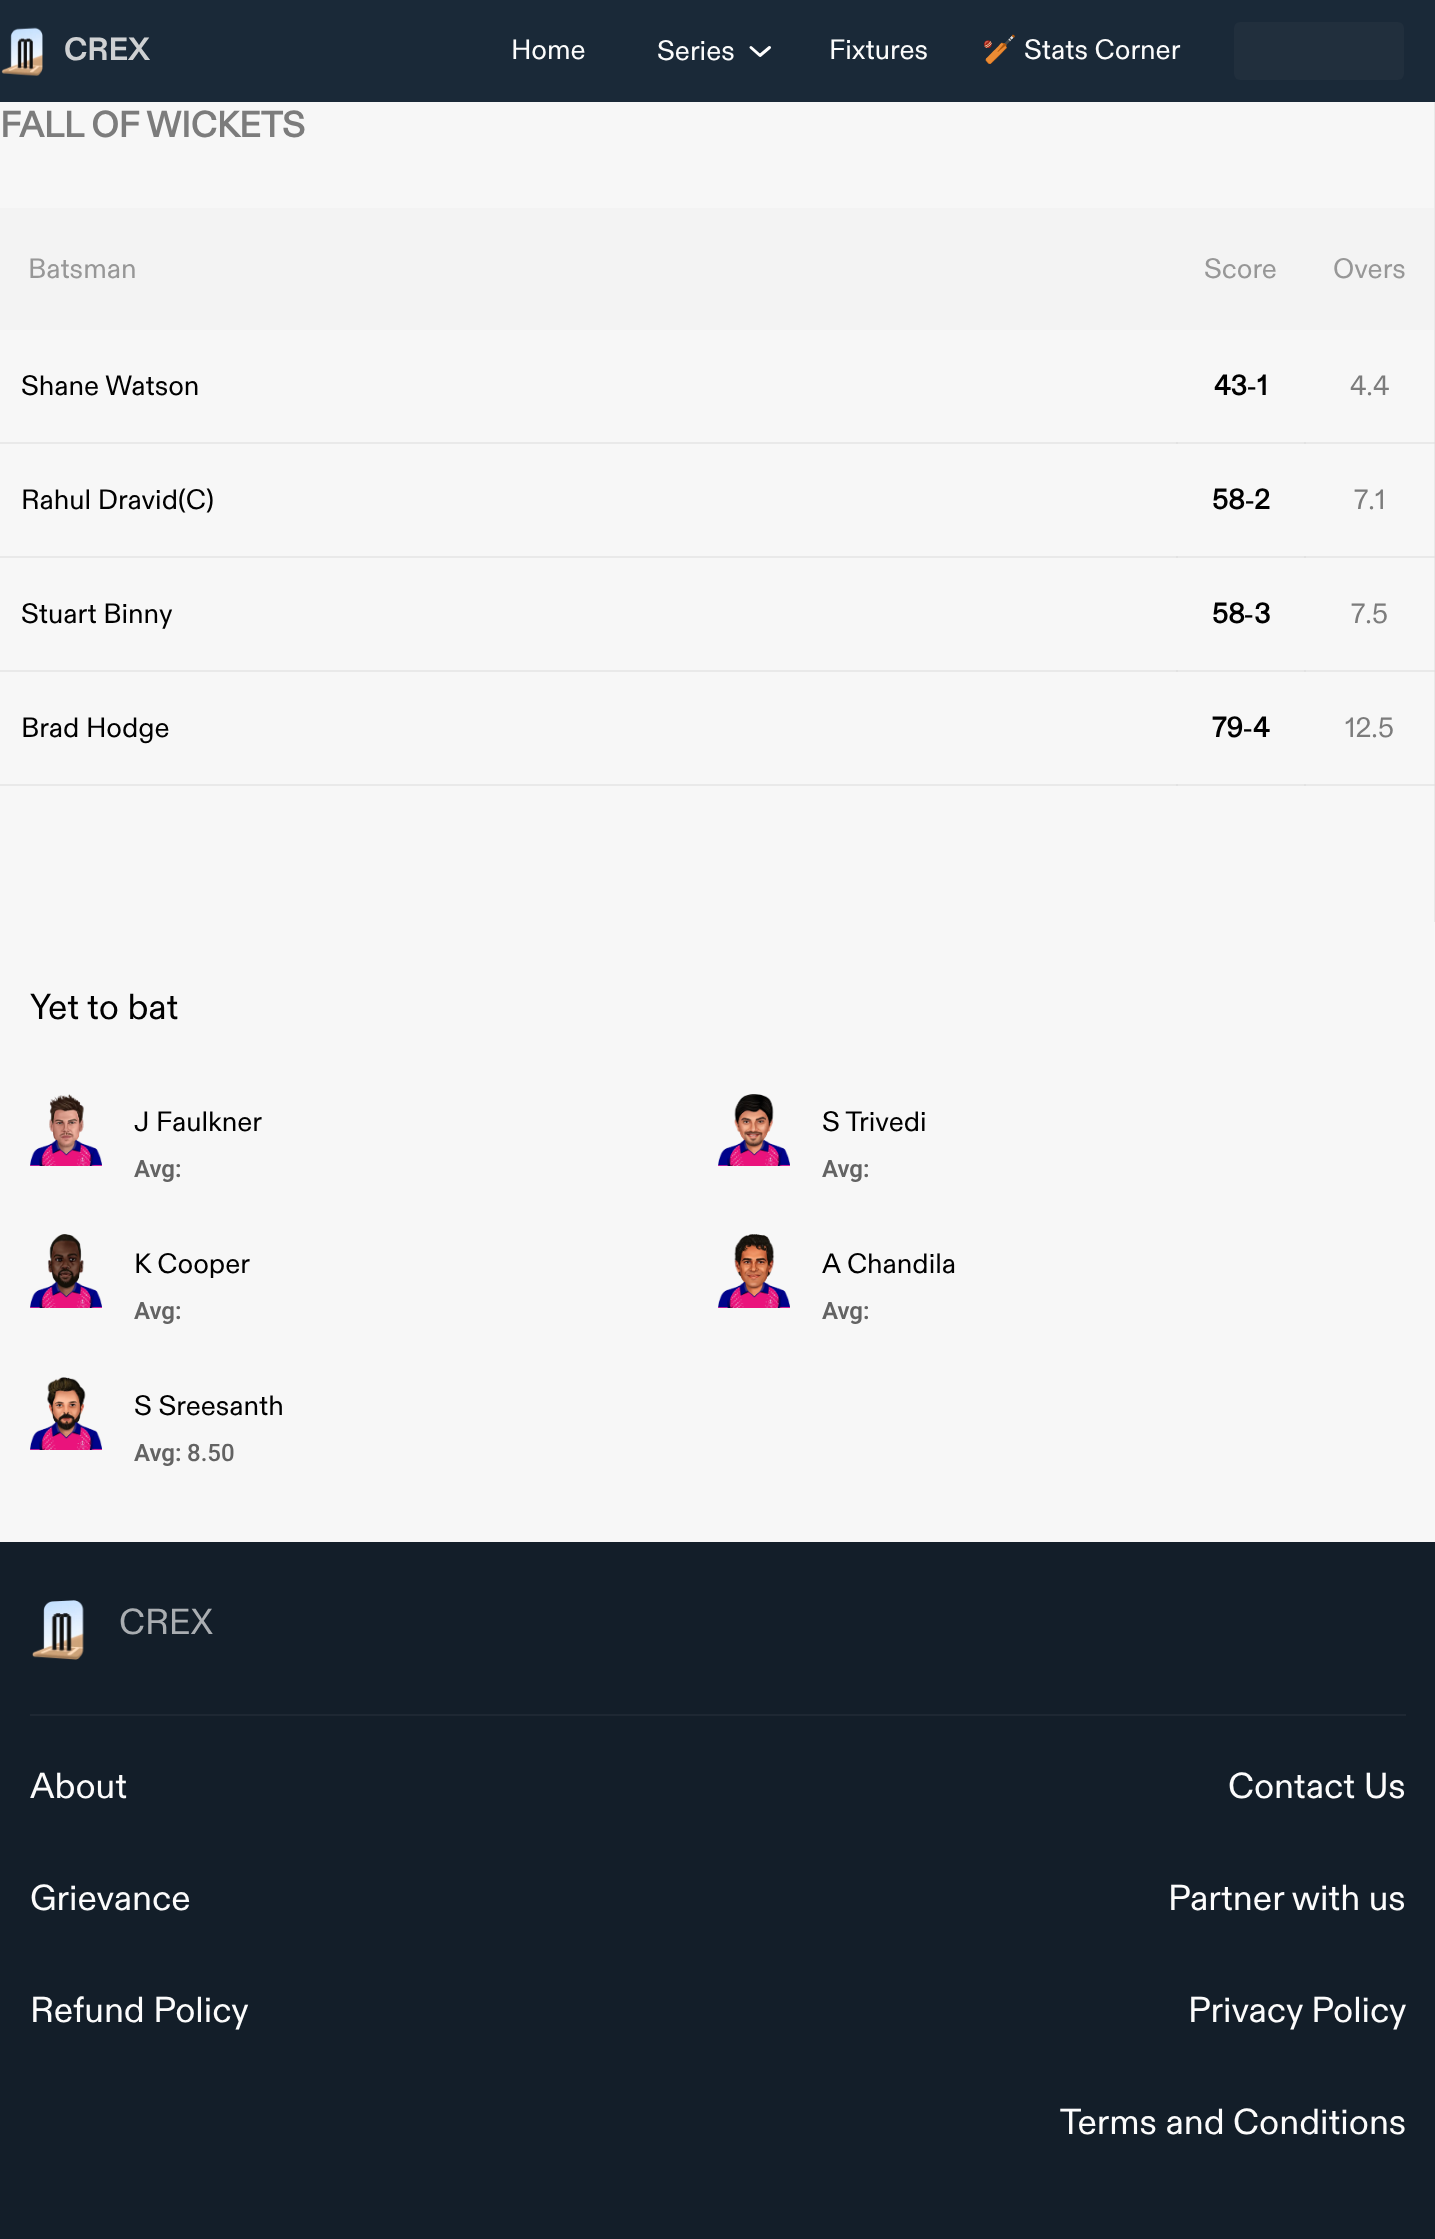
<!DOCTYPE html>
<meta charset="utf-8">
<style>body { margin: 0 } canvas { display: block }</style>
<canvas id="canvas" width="1435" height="2239"></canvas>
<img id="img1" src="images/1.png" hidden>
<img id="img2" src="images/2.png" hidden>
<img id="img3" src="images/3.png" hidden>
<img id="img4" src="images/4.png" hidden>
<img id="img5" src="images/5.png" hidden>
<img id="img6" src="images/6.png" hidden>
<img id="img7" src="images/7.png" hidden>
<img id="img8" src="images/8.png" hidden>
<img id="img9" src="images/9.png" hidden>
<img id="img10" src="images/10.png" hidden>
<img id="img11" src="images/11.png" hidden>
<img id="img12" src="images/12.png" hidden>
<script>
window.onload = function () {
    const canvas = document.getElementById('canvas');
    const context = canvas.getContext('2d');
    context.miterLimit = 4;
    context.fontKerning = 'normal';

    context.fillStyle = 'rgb(247, 247, 247)';
    context.fillRect(0, 0, 1435, 2239);
    context.fillStyle = 'rgb(233, 233, 233)';
    context.fillRect(0, 442, 1435, 2);
    context.fillStyle = 'rgb(226, 226, 226)';
    context.fillRect(1176, 442, 2, 2);
    context.fillRect(1304, 442, 2, 2);
    context.fillStyle = 'rgb(233, 233, 233)';
    context.fillRect(0, 556, 1435, 2);
    context.fillStyle = 'rgb(226, 226, 226)';
    context.fillRect(1176, 556, 2, 2);
    context.fillRect(1304, 556, 2, 2);
    context.fillStyle = 'rgb(233, 233, 233)';
    context.fillRect(0, 670, 1435, 2);
    context.fillStyle = 'rgb(226, 226, 226)';
    context.fillRect(1176, 670, 2, 2);
    context.fillRect(1304, 670, 2, 2);
    context.fillStyle = 'rgb(233, 233, 233)';
    context.fillRect(0, 784, 1435, 2);
    context.fillStyle = 'rgb(226, 226, 226)';
    context.fillRect(1176, 784, 2, 2);
    context.fillRect(1304, 784, 2, 2);
    context.fillStyle = 'rgb(26, 41, 56)';
    context.fillRect(0, 0, 1435, 102);
    context.drawImage(document.getElementById('img1'), 1, 27, 42, 49);
    context.beginPath();
    context.moveTo(751, 47.5);
    context.lineTo(760, 55.5);
    context.lineTo(769.5, 47.5);
    context.strokeStyle = 'rgb(255, 255, 255)';
    context.lineWidth = 3;
    context.lineCap = 'round';
    context.lineJoin = 'round';
    context.stroke();
    context.fillStyle = 'rgb(33, 47, 61)';
    context.beginPath();
    context.roundRect(1234, 22, 170, 58, 6);
    context.fill();
    context.fillStyle = 'rgb(233, 233, 233)';
    context.fillRect(1434, 102, 1, 820);
    context.fillStyle = 'rgb(226, 226, 226)';
    context.fillRect(1434, 442, 1, 2);
    context.fillRect(1434, 556, 1, 2);
    context.fillRect(1434, 670, 1, 2);
    context.fillRect(1434, 784, 1, 2);
    context.fillStyle = 'rgb(243, 243, 243)';
    context.fillRect(0, 208, 1434, 122);
    context.drawImage(document.getElementById('img2'), 49, 1094, 35, 61);
    context.drawImage(document.getElementById('img3'), 30, 1140, 72, 26);
    context.drawImage(document.getElementById('img4'), 734, 1094, 40, 61);
    context.drawImage(document.getElementById('img5'), 718, 1140, 72, 26);
    context.drawImage(document.getElementById('img6'), 47, 1234, 37, 63);
    context.drawImage(document.getElementById('img7'), 30, 1282, 72, 26);
    context.drawImage(document.getElementById('img8'), 734, 1234, 41, 63);
    context.drawImage(document.getElementById('img9'), 718, 1282, 72, 26);
    context.drawImage(document.getElementById('img10'), 47, 1377, 39, 61);
    context.drawImage(document.getElementById('img11'), 30, 1422, 72, 28);
    context.fillStyle = 'rgb(19, 30, 41)';
    context.fillRect(0, 1542, 1435, 697);
    context.fillStyle = 'rgb(30, 40, 51)';
    context.fillRect(30, 1714, 1376, 2);
    context.drawImage(document.getElementById('img12'), 32, 1600, 52, 60);
    context.font = 'bold 32px "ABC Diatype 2"';
    context.fillStyle = 'rgb(207, 209, 211)';
    context.fillText('CREX', 64, 60);
    context.font = '28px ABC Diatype';
    context.fillStyle = 'rgb(252, 252, 252)';
    context.fillText('Home', 511, 59);
    context.fillText('Series', 657, 60);
    context.fillText('Fixtures', 829, 59);
    context.font = '28px Noto Color Emoji';
    context.fillText('🏏', 982, 59);
    context.font = '28px ABC Diatype';
    context.fillText('Stats Corner', 1024, 59);
    context.font = 'bold 36px ABC Diatype';
    context.fillStyle = 'rgb(124, 124, 124)';
    context.fillText('FALL OF WICKETS', 0, 137);
    context.font = '28px ABC Diatype';
    context.fillStyle = 'rgb(151, 151, 151)';
    context.fillText('Batsman', 28, 278);
    context.fillText('Score', 1204, 278);
    context.fillText('Overs', 1333, 278);
    context.fillStyle = 'rgb(0, 0, 0)';
    context.fillText('Shane Watson', 21, 395);
    context.font = 'bold 28px ABC Diatype';
    context.fillText('43', 1214, 395);
    context.font = 'bold 28px Liberation Serif';
    context.fillText('-', 1247, 395);
    context.font = 'bold 28px ABC Diatype';
    context.fillText('1', 1257, 395);
    context.font = '28px ABC Diatype';
    context.fillStyle = 'rgb(124, 124, 124)';
    context.fillText('4', 1350, 395);
    context.font = '28px Liberation Serif';
    context.fillText('.', 1366, 395);
    context.font = '28px ABC Diatype';
    context.fillText('4', 1373, 395);
    context.fillStyle = 'rgb(0, 0, 0)';
    context.fillText('Rahul Dravid(C)', 21, 509);
    context.font = 'bold 28px ABC Diatype';
    context.fillText('58', 1212, 509);
    context.font = 'bold 28px Liberation Serif';
    context.fillText('-', 1245, 509);
    context.font = 'bold 28px ABC Diatype';
    context.fillText('2', 1254, 509);
    context.font = '28px ABC Diatype';
    context.fillStyle = 'rgb(124, 124, 124)';
    context.fillText('7', 1354, 509);
    context.font = '28px Liberation Serif';
    context.fillText('.', 1368, 509);
    context.font = '28px ABC Diatype';
    context.fillText('1', 1375, 509);
    context.fillStyle = 'rgb(0, 0, 0)';
    context.fillText('Stuart Binny', 21, 623);
    context.font = 'bold 28px ABC Diatype';
    context.fillText('58', 1212, 623);
    context.font = 'bold 28px Liberation Serif';
    context.fillText('-', 1244, 623);
    context.font = 'bold 28px ABC Diatype';
    context.fillText('3', 1254, 623);
    context.font = '28px ABC Diatype';
    context.fillStyle = 'rgb(124, 124, 124)';
    context.fillText('7', 1351, 623);
    context.font = '28px Liberation Serif';
    context.fillText('.', 1365, 623);
    context.font = '28px ABC Diatype';
    context.fillText('5', 1372, 623);
    context.fillStyle = 'rgb(0, 0, 0)';
    context.fillText('Brad Hodge', 21, 737);
    context.font = 'bold 28px ABC Diatype';
    context.fillText('79', 1212, 737);
    context.font = 'bold 28px Liberation Serif';
    context.fillText('-', 1243, 737);
    context.font = 'bold 28px ABC Diatype';
    context.fillText('4', 1253, 737);
    context.font = '28px ABC Diatype';
    context.fillStyle = 'rgb(124, 124, 124)';
    context.fillText('12', 1345, 737);
    context.font = '28px Liberation Serif';
    context.fillText('.', 1371, 737);
    context.font = '28px ABC Diatype';
    context.fillText('5', 1378, 737);
    context.font = '36px ABC Diatype';
    context.fillStyle = 'rgb(0, 0, 0)';
    context.fillText('Yet to bat', 30, 1019);
    context.font = '28px ABC Diatype';
    context.fillText('J Faulkner', 134, 1131);
    context.font = '600 24px Roboto';
    context.fillStyle = 'rgb(99, 99, 99)';
    context.fillText('Avg:', 134, 1177);
    context.font = '28px ABC Diatype';
    context.fillStyle = 'rgb(0, 0, 0)';
    context.fillText('S Trivedi', 822, 1131);
    context.font = '600 24px Roboto';
    context.fillStyle = 'rgb(99, 99, 99)';
    context.fillText('Avg:', 822, 1177);
    context.save();
    context.beginPath();
    context.rect(134, 1250, 116, 28);
    context.clip();
    context.font = '28px ABC Diatype';
    context.fillStyle = 'rgb(0, 0, 0)';
    context.fillText('K Cooper', 134, 1273);
    context.restore();
    context.fillText('Avg:', 134, 1319);
    context.font = '28px ABC Diatype';
    context.fillStyle = 'rgb(0, 0, 0)';
    context.fillText('A Chandila', 822, 1273);
    context.font = '600 24px Roboto';
    context.fillStyle = 'rgb(99, 99, 99)';
    context.fillText('Avg:', 822, 1319);
    context.font = '28px ABC Diatype';
    context.fillStyle = 'rgb(0, 0, 0)';
    context.fillText('S Sreesanth', 134, 1415);
    context.font = '600 24px Roboto';
    context.fillStyle = 'rgb(99, 99, 99)';
    context.fillText('Avg:', 134, 1461);
    context.font = '500 24px Roboto';
    context.fillText('8.50', 187, 1461);
    context.font = '36px ABC Diatype';
    context.fillStyle = 'rgb(169, 173, 177)';
    context.fillText('CREX', 119, 1634);
    context.fillStyle = 'rgb(252, 252, 252)';
    context.fillText('About', 30, 1798);
    context.fillText('Grievance', 30, 1910);
    context.fillText('Refund Policy', 30, 2022);
    context.fillText('Contact Us', 1228, 1798);
    context.fillText('Partner with us', 1168, 1910);
    context.fillText('Privacy Policy', 1188, 2022);
    context.fillText('Terms and Conditions', 1060, 2134);
};
</script>
